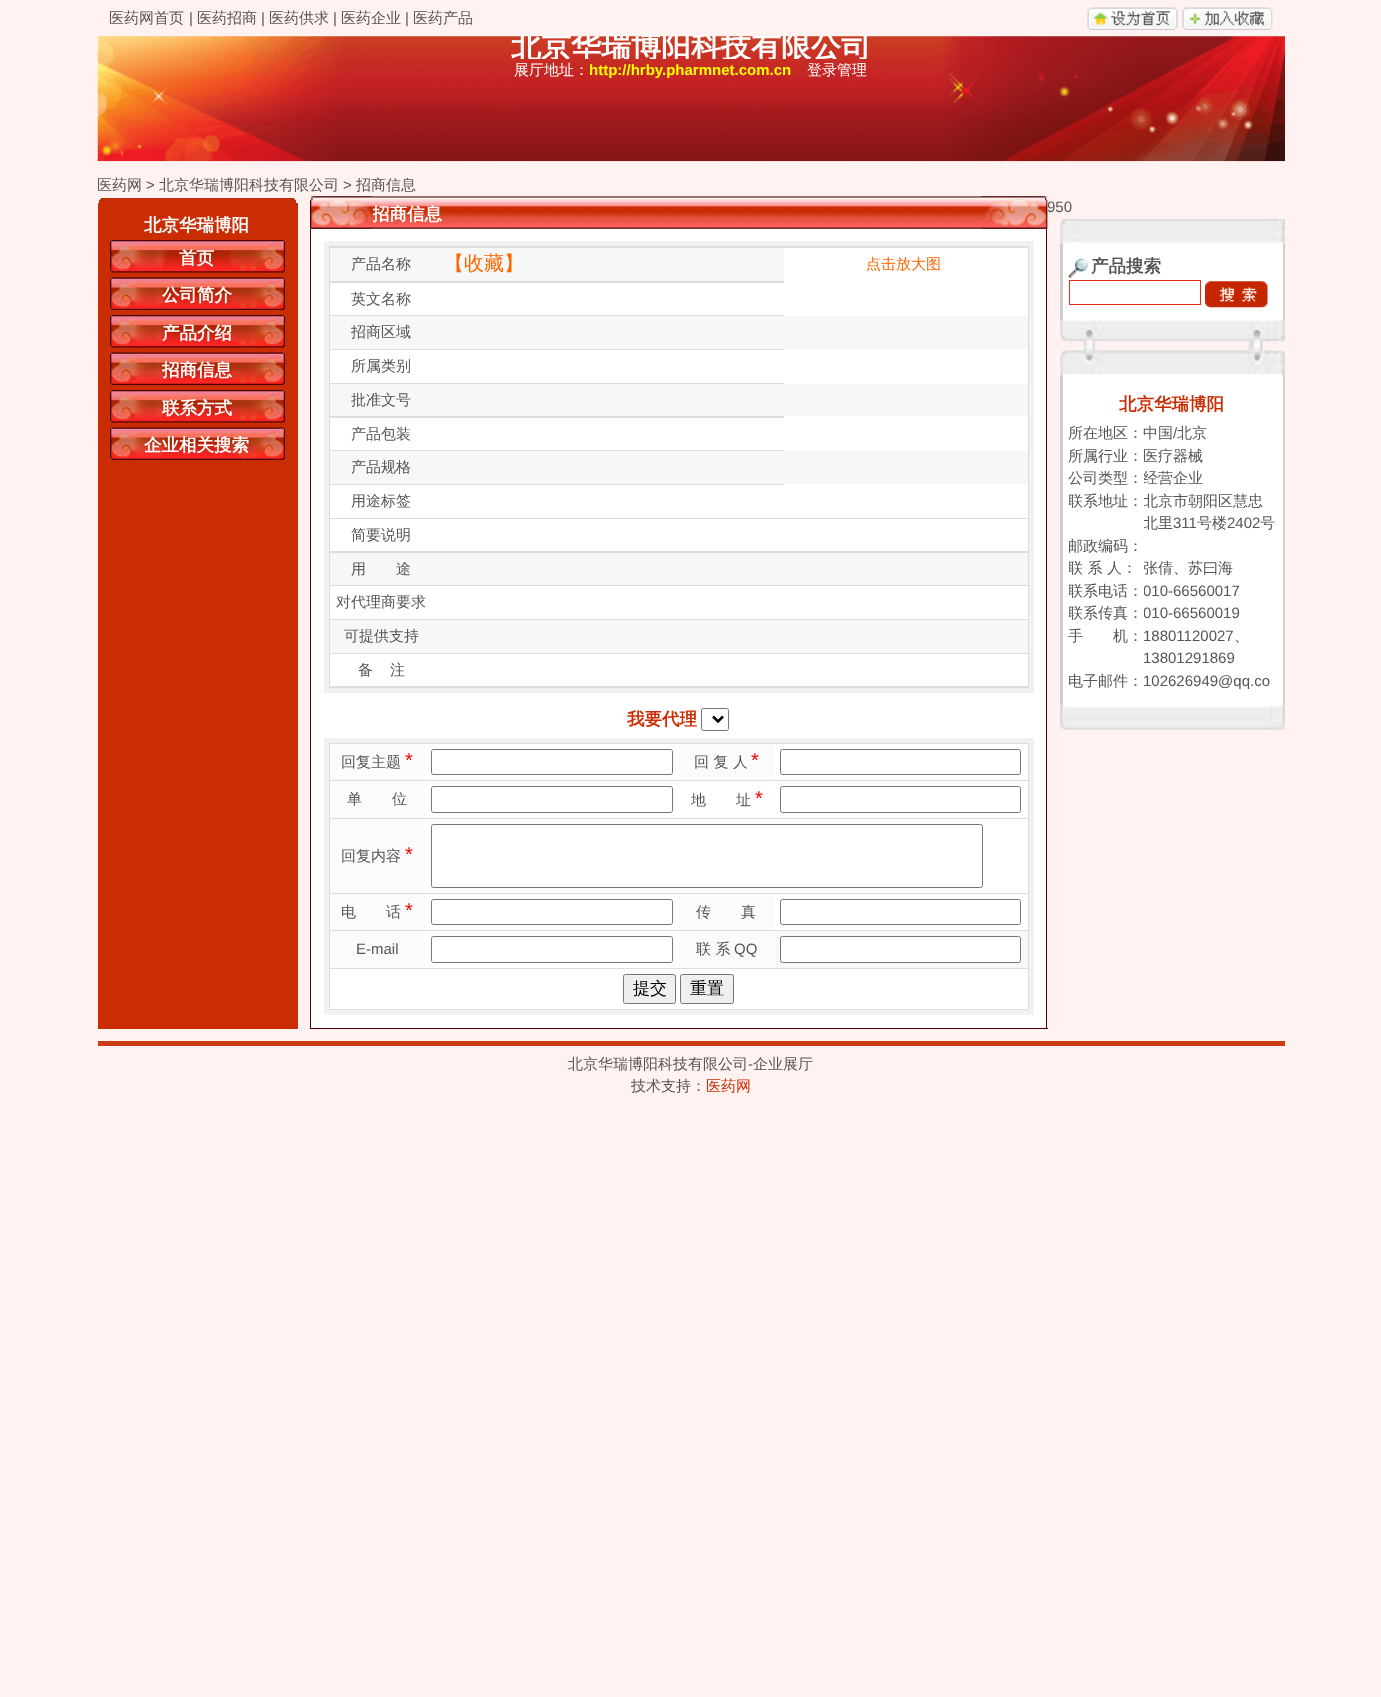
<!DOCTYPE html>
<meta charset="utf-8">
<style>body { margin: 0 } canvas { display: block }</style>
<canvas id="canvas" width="1381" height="1697"></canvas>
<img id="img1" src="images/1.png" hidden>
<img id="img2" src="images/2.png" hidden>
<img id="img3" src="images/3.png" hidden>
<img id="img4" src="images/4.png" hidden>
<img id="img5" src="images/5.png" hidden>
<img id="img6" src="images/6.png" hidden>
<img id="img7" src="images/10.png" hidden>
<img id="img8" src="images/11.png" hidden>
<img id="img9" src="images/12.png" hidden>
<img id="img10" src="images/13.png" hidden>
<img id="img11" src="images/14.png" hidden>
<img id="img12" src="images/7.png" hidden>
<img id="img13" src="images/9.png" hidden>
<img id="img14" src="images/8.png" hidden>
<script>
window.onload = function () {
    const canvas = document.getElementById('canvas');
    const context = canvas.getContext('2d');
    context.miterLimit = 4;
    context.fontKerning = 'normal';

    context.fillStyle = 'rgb(255, 242, 241)';
    context.fillRect(0, 0, 1381, 1697);
    context.drawImage(document.getElementById('img1'), 1087, 7, 91, 23);
    context.drawImage(document.getElementById('img2'), 1182, 7, 91, 23);
    context.drawImage(document.getElementById('img3'), 97, 36, 1188, 126);
    context.fillStyle = 'rgb(202, 45, 4)';
    context.fillRect(98, 203, 200, 826);
    context.fillRect(101, 198, 193, 1);
    context.fillRect(100, 199, 195, 1);
    context.fillRect(99, 200, 197, 3);
    context.drawImage(document.getElementById('img4'), 110, 240, 175, 33);
    context.drawImage(document.getElementById('img5'), 110, 277, 175, 33);
    context.drawImage(document.getElementById('img4'), 110, 315, 175, 33);
    context.drawImage(document.getElementById('img6'), 110, 352, 175, 33);
    context.drawImage(document.getElementById('img4'), 110, 390, 175, 33);
    context.drawImage(document.getElementById('img6'), 110, 427, 175, 33);
    context.fillStyle = 'rgb(255, 255, 255)';
    context.fillRect(311, 229, 735, 799);
    context.fillStyle = 'rgb(75, 1, 0)';
    context.fillRect(1046, 229, 1, 800);
    context.fillRect(310, 1028, 738, 1);
    context.fillRect(310, 229, 1, 800);
    context.strokeStyle = 'rgb(241, 241, 241)';
    context.lineWidth = 5;
    context.strokeRect(326.5, 243.5, 705, 447);
    context.fillStyle = 'rgb(221, 221, 221)';
    context.fillRect(329, 246, 700, 442);
    context.fillStyle = 'rgb(247, 247, 247)';
    context.fillRect(330, 248, 454, 33);
    context.fillStyle = 'rgb(255, 255, 255)';
    context.fillRect(784, 248, 244, 237);
    context.fillRect(330, 283, 454, 32);
    context.fillStyle = 'rgb(247, 247, 247)';
    context.fillRect(330, 316, 698, 33);
    context.fillStyle = 'rgb(255, 255, 255)';
    context.fillRect(330, 350, 454, 33);
    context.fillStyle = 'rgb(247, 247, 247)';
    context.fillRect(330, 384, 698, 32);
    context.fillStyle = 'rgb(255, 255, 255)';
    context.fillRect(330, 418, 454, 32);
    context.fillStyle = 'rgb(247, 247, 247)';
    context.fillRect(330, 451, 698, 33);
    context.fillStyle = 'rgb(255, 255, 255)';
    context.fillRect(330, 485, 698, 33);
    context.fillRect(330, 519, 698, 32);
    context.fillStyle = 'rgb(247, 247, 247)';
    context.fillRect(330, 553, 698, 32);
    context.fillStyle = 'rgb(255, 255, 255)';
    context.fillRect(330, 586, 698, 33);
    context.fillStyle = 'rgb(247, 247, 247)';
    context.fillRect(330, 620, 698, 33);
    context.fillStyle = 'rgb(255, 255, 255)';
    context.fillRect(330, 654, 698, 32);
    context.beginPath();
    context.roundRect(701.5, 708.5, 27, 22, 2);
    context.strokeStyle = 'rgb(118, 118, 118)';
    context.lineWidth = 1;
    context.stroke();
    context.beginPath();
    context.moveTo(713, 716.5);
    context.lineTo(718, 721.5);
    context.lineTo(723, 716.5);
    context.strokeStyle = 'rgb(0, 0, 0)';
    context.lineWidth = 2.5;
    context.stroke();
    context.strokeStyle = 'rgb(241, 241, 241)';
    context.lineWidth = 5;
    context.strokeRect(326.5, 740.5, 705, 272);
    context.fillStyle = 'rgb(221, 221, 221)';
    context.fillRect(329, 743, 700, 267);
    context.fillStyle = 'rgb(255, 255, 255)';
    context.fillRect(425, 744, 603, 36);
    context.fillStyle = 'rgb(251, 251, 251)';
    context.fillRect(330, 744, 95, 36);
    context.beginPath();
    context.roundRect(431.5, 749.5, 241, 25, 2);
    context.strokeStyle = 'rgb(118, 118, 118)';
    context.lineWidth = 1;
    context.stroke();
    context.fillRect(679, 744, 95, 36);
    context.beginPath();
    context.roundRect(780.5, 749.5, 240, 25, 2);
    context.stroke();
    context.fillStyle = 'rgb(255, 255, 255)';
    context.fillRect(425, 781, 603, 37);
    context.fillStyle = 'rgb(251, 251, 251)';
    context.fillRect(330, 781, 95, 37);
    context.beginPath();
    context.roundRect(431.5, 786.5, 241, 26, 2);
    context.stroke();
    context.beginPath();
    context.roundRect(780.5, 786.5, 240, 26, 2);
    context.stroke();
    context.fillStyle = 'rgb(255, 255, 255)';
    context.fillRect(425, 819, 603, 74);
    context.fillStyle = 'rgb(251, 251, 251)';
    context.fillRect(330, 819, 95, 74);
    context.beginPath();
    context.roundRect(431.5, 824.5, 551, 63, 2);
    context.stroke();
    context.fillStyle = 'rgb(255, 255, 255)';
    context.fillRect(425, 894, 603, 36);
    context.fillStyle = 'rgb(251, 251, 251)';
    context.fillRect(330, 894, 95, 36);
    context.beginPath();
    context.roundRect(431.5, 899.5, 241, 25, 2);
    context.stroke();
    context.fillRect(679, 894, 95, 36);
    context.beginPath();
    context.roundRect(780.5, 899.5, 240, 25, 2);
    context.stroke();
    context.fillStyle = 'rgb(255, 255, 255)';
    context.fillRect(425, 931, 350, 37);
    context.fillStyle = 'rgb(251, 251, 251)';
    context.fillRect(330, 931, 95, 37);
    context.beginPath();
    context.roundRect(431.5, 936.5, 241, 26, 2);
    context.stroke();
    context.fillRect(679, 931, 95, 37);
    context.fillStyle = 'rgb(247, 247, 247)';
    context.fillRect(775, 931, 253, 37);
    context.fillStyle = 'rgb(255, 255, 255)';
    context.beginPath();
    context.roundRect(780.5, 936.5, 240, 26, 2);
    context.fill();
    context.stroke();
    context.fillRect(330, 969, 698, 40);
    context.fillStyle = 'rgb(239, 239, 239)';
    context.beginPath();
    context.roundRect(623.5, 974.5, 52, 29, 2);
    context.fill();
    context.stroke();
    context.beginPath();
    context.roundRect(680.5, 974.5, 53, 29, 2);
    context.fill();
    context.stroke();
    context.drawImage(document.getElementById('img7'), 1060, 219, 225, 24);
    context.fillStyle = 'rgb(255, 255, 255)';
    context.fillRect(1063, 243, 220, 77);
    context.fillStyle = 'rgb(207, 207, 207)';
    context.fillRect(1283, 243, 2, 77);
    context.fillRect(1060, 243, 3, 77);
    context.drawImage(document.getElementById('img8'), 1068, 258, 20, 20);
    context.strokeStyle = 'rgb(226, 45, 17)';
    context.strokeRect(1069.5, 280.5, 131, 24);
    context.drawImage(document.getElementById('img9'), 1205, 281, 63, 27);
    context.drawImage(document.getElementById('img10'), 1060, 320, 225, 55);
    context.fillStyle = 'rgb(255, 255, 255)';
    context.fillRect(1063, 375, 220, 330);
    context.fillStyle = 'rgb(207, 207, 207)';
    context.fillRect(1283, 375, 2, 330);
    context.fillRect(1060, 375, 3, 330);
    context.drawImage(document.getElementById('img11'), 1060, 705, 225, 25);
    context.fillStyle = 'rgb(206, 59, 21)';
    context.fillRect(98, 1041, 1187, 5);
    context.font = '500 15px WenQuanYi Zen Hei';
    context.fillStyle = 'rgb(85, 85, 85)';
    context.fillText('医药网首页', 109, 23);
    context.font = '15px Liberation Sans';
    context.fillText('|', 189, 23);
    context.font = '500 15px WenQuanYi Zen Hei';
    context.fillText('医药招商', 197, 23);
    context.font = '15px Liberation Sans';
    context.fillText('|', 261, 23);
    context.font = '500 15px WenQuanYi Zen Hei';
    context.fillText('医药供求', 269, 23);
    context.font = '15px Liberation Sans';
    context.fillText('|', 333, 23);
    context.font = '500 15px WenQuanYi Zen Hei';
    context.fillText('医药企业', 341, 23);
    context.font = '15px Liberation Sans';
    context.fillText('|', 405, 23);
    context.font = '500 15px WenQuanYi Zen Hei';
    context.fillText('医药产品', 413, 23);
    context.save();
    context.beginPath();
    context.rect(98, 36, 1187, 23);
    context.clip();
    context.font = 'bold 30px WenQuanYi Zen Hei';
    context.fillStyle = 'rgb(255, 255, 255)';
    context.fillText('北京华瑞博阳科技有限公司', 511, 57);
    context.restore();
    context.fillStyle = 'rgb(255, 255, 255)';
    context.fillText('展厅地址：', 514, 75);
    context.font = 'bold 15px Liberation Sans';
    context.fillStyle = 'rgb(255, 255, 0)';
    context.fillText('http://hrby.pharmnet.com.cn', 589, 75);
    context.font = '500 15px WenQuanYi Zen Hei';
    context.fillStyle = 'rgb(255, 255, 255)';
    context.fillText('登录管理', 807, 75);
    context.save();
    context.beginPath();
    context.rect(98, 174, 1187, 22);
    context.clip();
    context.fillStyle = 'rgb(85, 85, 85)';
    context.fillText('医药网', 97, 190);
    context.restore();
    context.font = '15px Liberation Sans';
    context.fillStyle = 'rgb(85, 85, 85)';
    context.fillText('>', 146, 190);
    context.font = '500 15px WenQuanYi Zen Hei';
    context.fillText('北京华瑞博阳科技有限公司', 159, 190);
    context.font = '15px Liberation Sans';
    context.fillText('>', 343, 190);
    context.font = '500 15px WenQuanYi Zen Hei';
    context.fillText('招商信息', 356, 190);
    context.font = 'bold 17.5px WenQuanYi Zen Hei';
    context.fillStyle = 'rgb(255, 255, 255)';
    context.fillText('北京华瑞博阳', 144, 231);
    context.fillText('首页', 179, 264);
    context.fillText('公司简介', 162, 301);
    context.fillText('产品介绍', 162, 339);
    context.fillText('招商信息', 162, 376);
    context.fillText('联系方式', 162, 414);
    context.fillText('企业相关搜索', 144, 451);
    context.font = '500 15px WenQuanYi Zen Hei';
    context.fillStyle = 'rgb(85, 85, 85)';
    context.fillText('产品名称', 351, 269);
    context.font = '500 20px WenQuanYi Zen Hei';
    context.fillStyle = 'rgb(255, 102, 0)';
    context.fillText('【收藏】', 444, 270);
    context.font = '500 15px WenQuanYi Zen Hei';
    context.fillText('点击放大图', 866, 269);
    context.fillStyle = 'rgb(85, 85, 85)';
    context.fillText('英文名称', 351, 304);
    context.fillText('招商区域', 351, 337);
    context.fillText('所属类别', 351, 371);
    context.fillText('批准文号', 351, 405);
    context.fillText('产品包装', 351, 439);
    context.fillText('产品规格', 351, 472);
    context.fillText('用途标签', 351, 506);
    context.fillText('简要说明', 351, 540);
    context.fillText('用　　途', 351, 574);
    context.fillText('对代理商要求', 336, 607);
    context.fillText('可提供支持', 344, 641);
    context.fillText('备', 358, 675);
    context.fillText('注', 390, 675);
    context.font = 'bold 17.5px WenQuanYi Zen Hei';
    context.fillStyle = 'rgb(202, 45, 4)';
    context.fillText('我要代理', 627, 725);
    context.font = '500 15px WenQuanYi Zen Hei';
    context.fillStyle = 'rgb(85, 85, 85)';
    context.fillText('回复主题', 341, 767);
    context.font = '20px Liberation Sans';
    context.fillStyle = 'rgb(255, 0, 0)';
    context.fillText('*', 405, 767);
    context.font = '500 15px WenQuanYi Zen Hei';
    context.fillStyle = 'rgb(85, 85, 85)';
    context.fillText('回 复 人', 694, 767);
    context.font = '20px Liberation Sans';
    context.fillStyle = 'rgb(255, 0, 0)';
    context.fillText('*', 751, 767);
    context.font = '500 15px WenQuanYi Zen Hei';
    context.fillStyle = 'rgb(85, 85, 85)';
    context.fillText('单　　位', 347, 804);
    context.fillText('地　　址', 691, 805);
    context.font = '20px Liberation Sans';
    context.fillStyle = 'rgb(255, 0, 0)';
    context.fillText('*', 755, 805);
    context.font = '500 15px WenQuanYi Zen Hei';
    context.fillStyle = 'rgb(85, 85, 85)';
    context.fillText('回复内容', 341, 861);
    context.font = '20px Liberation Sans';
    context.fillStyle = 'rgb(255, 0, 0)';
    context.fillText('*', 405, 861);
    context.font = '500 15px WenQuanYi Zen Hei';
    context.fillStyle = 'rgb(85, 85, 85)';
    context.fillText('电　　话', 341, 917);
    context.font = '20px Liberation Sans';
    context.fillStyle = 'rgb(255, 0, 0)';
    context.fillText('*', 405, 917);
    context.font = '500 15px WenQuanYi Zen Hei';
    context.fillStyle = 'rgb(85, 85, 85)';
    context.fillText('传　　真', 696, 917);
    context.font = '15px Liberation Sans';
    context.fillText('E-mail', 356, 954);
    context.font = '500 15px WenQuanYi Zen Hei';
    context.fillText('联 系', 696, 954);
    context.font = '15px Liberation Sans';
    context.fillText('QQ', 734, 954);
    context.font = '500 17px WenQuanYi Zen Hei';
    context.fillStyle = 'rgb(0, 0, 0)';
    context.fillText('提交', 633, 994);
    context.fillText('重置', 690, 994);
    context.font = '15px Liberation Sans';
    context.fillStyle = 'rgb(85, 85, 85)';
    context.fillText('950', 1047, 212);
    context.drawImage(document.getElementById('img12'), 310, 196, 738, 33);
    context.drawImage(document.getElementById('img13'), 981, 196, 67, 33);
    context.save();
    context.beginPath();
    context.rect(373, 196, 608, 30);
    context.clip();
    context.font = 'bold 17.5px WenQuanYi Zen Hei';
    context.fillStyle = 'rgb(255, 255, 255)';
    context.fillText('招商信息', 372, 220);
    context.restore();
    context.drawImage(document.getElementById('img14'), 310, 196, 63, 33);
    context.font = 'bold 17.5px WenQuanYi Zen Hei';
    context.fillText('产品搜索', 1091, 272);
    context.fillStyle = 'rgb(202, 45, 4)';
    context.fillText('北京华瑞博阳', 1119, 410);
    context.font = '500 15px WenQuanYi Zen Hei';
    context.fillStyle = 'rgb(85, 85, 85)';
    context.fillText('所在地区：中国', 1068, 438);
    context.font = '15px Liberation Sans';
    context.fillText('/', 1173, 438);
    context.font = '500 15px WenQuanYi Zen Hei';
    context.fillText('北京', 1177, 438);
    context.fillText('所属行业：医疗器械', 1068, 461);
    context.fillText('公司类型：', 1068, 483);
    context.save();
    context.beginPath();
    context.rect(1144, 468, 132, 22);
    context.clip();
    context.fillText('经营企业', 1143, 483);
    context.restore();
    context.save();
    context.beginPath();
    context.rect(1069, 490, 75, 23);
    context.clip();
    context.fillText('联系地址：', 1068, 506);
    context.restore();
    context.save();
    context.beginPath();
    context.rect(1144, 490, 132, 45);
    context.clip();
    context.fillText('北京市朝阳区慧忠', 1143, 506);
    context.fillText('北里', 1143, 528);
    context.restore();
    context.font = '15px Liberation Sans';
    context.fillText('311', 1173, 528);
    context.font = '500 15px WenQuanYi Zen Hei';
    context.fillText('号楼', 1197, 528);
    context.font = '15px Liberation Sans';
    context.fillText('2402', 1227, 528);
    context.font = '500 15px WenQuanYi Zen Hei';
    context.fillText('号', 1260, 528);
    context.fillText('邮政编码：', 1068, 551);
    context.save();
    context.beginPath();
    context.rect(1069, 558, 75, 22);
    context.clip();
    context.fillText('联 系 人：', 1068, 573);
    context.restore();
    context.save();
    context.beginPath();
    context.rect(1144, 558, 132, 22);
    context.clip();
    context.fillText('张倩、苏曰海', 1143, 573);
    context.restore();
    context.save();
    context.beginPath();
    context.rect(1069, 580, 75, 23);
    context.clip();
    context.fillText('联系电话：', 1068, 596);
    context.restore();
    context.save();
    context.beginPath();
    context.rect(1144, 580, 132, 23);
    context.clip();
    context.font = '15px Liberation Sans';
    context.fillText('010-66560017', 1143, 596);
    context.restore();
    context.save();
    context.beginPath();
    context.rect(1069, 603, 75, 22);
    context.clip();
    context.fillText('联系传真：', 1068, 618);
    context.restore();
    context.save();
    context.beginPath();
    context.rect(1144, 603, 132, 22);
    context.clip();
    context.font = '15px Liberation Sans';
    context.fillText('010-66560019', 1143, 618);
    context.restore();
    context.fillText('手　　机：', 1068, 641);
    context.font = '15px Liberation Sans';
    context.fillText('18801120027', 1143, 641);
    context.font = '500 15px WenQuanYi Zen Hei';
    context.fillText('、', 1234, 641);
    context.font = '15px Liberation Sans';
    context.fillText('13801291869', 1143, 663);
    context.font = '500 15px WenQuanYi Zen Hei';
    context.fillText('电子邮件：', 1068, 686);
    context.font = '15px Liberation Sans';
    context.fillText('102626949@qq.co', 1143, 686);
    context.font = '500 15px WenQuanYi Zen Hei';
    context.fillText('北京华瑞博阳科技有限公司', 568, 1069);
    context.font = '15px Liberation Sans';
    context.fillText('-', 748, 1069);
    context.font = '500 15px WenQuanYi Zen Hei';
    context.fillText('企业展厅', 753, 1069);
    context.fillText('技术支持：', 631, 1091);
    context.fillStyle = 'rgb(202, 45, 4)';
    context.fillText('医药网', 706, 1091);
};
</script>
